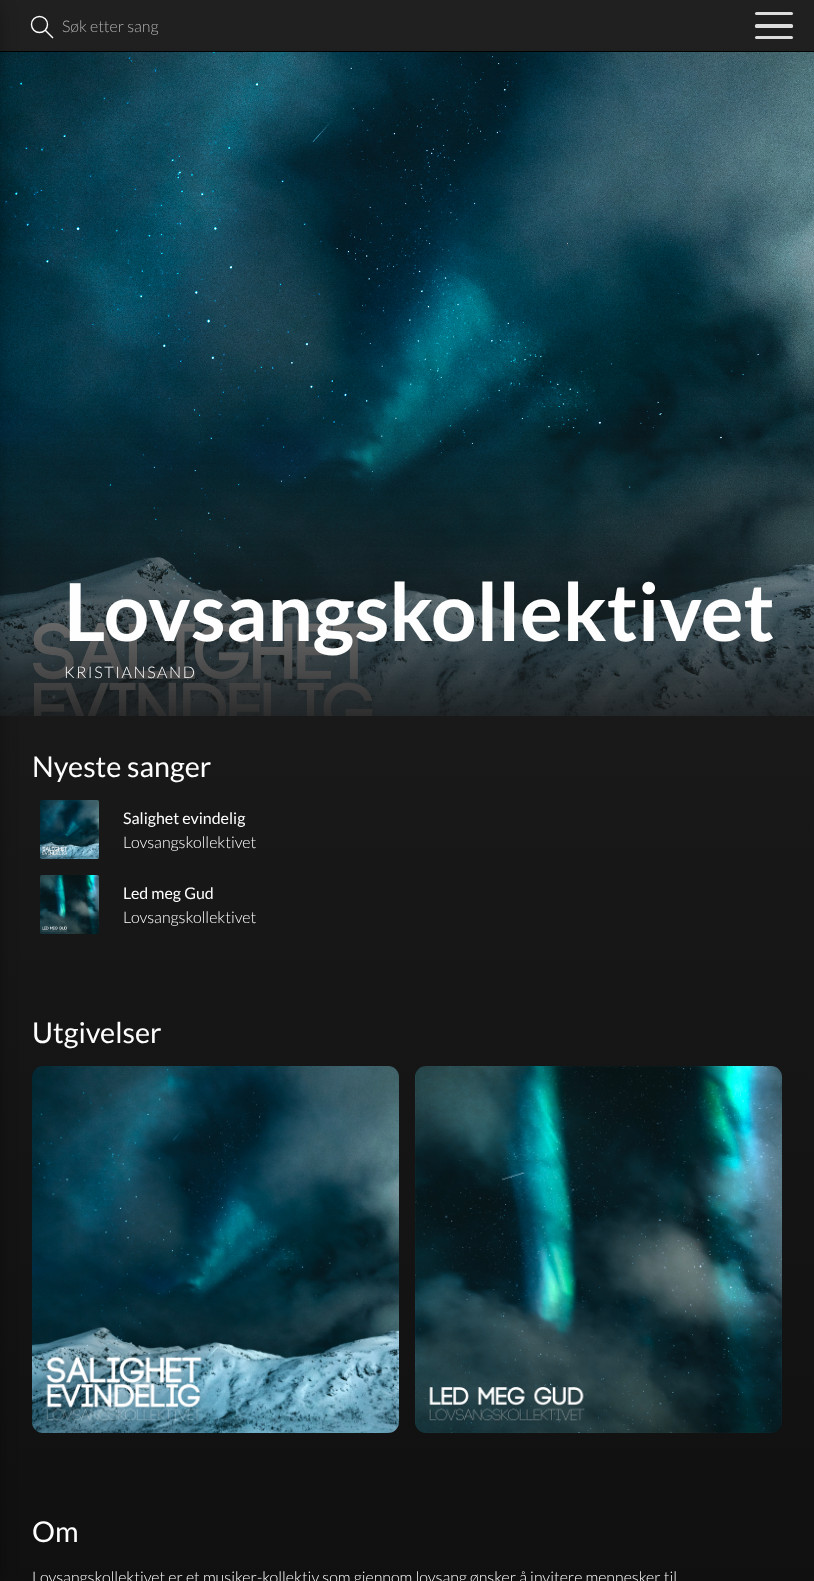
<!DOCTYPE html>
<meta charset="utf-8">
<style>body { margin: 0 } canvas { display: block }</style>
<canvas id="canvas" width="814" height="1581"></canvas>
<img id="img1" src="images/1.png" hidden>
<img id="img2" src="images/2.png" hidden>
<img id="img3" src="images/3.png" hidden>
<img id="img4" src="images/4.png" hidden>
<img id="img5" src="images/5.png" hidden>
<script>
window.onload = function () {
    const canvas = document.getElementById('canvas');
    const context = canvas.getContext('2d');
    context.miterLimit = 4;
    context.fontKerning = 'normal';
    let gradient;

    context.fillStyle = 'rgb(255, 255, 255)';
    context.fillRect(0, 0, 814, 1581);
    gradient = context.createLinearGradient(407, 0, 407, 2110);
    gradient.addColorStop(0, 'rgb(32, 32, 32)');
    gradient.addColorStop(1, 'rgb(11, 11, 11)');
    context.fillStyle = gradient;
    context.fillRect(0, 0, 814, 1581);
    context.fillStyle = 'rgb(0, 0, 0)';
    context.fillRect(0, 51, 814, 1);
    context.drawImage(document.getElementById('img1'), 0, 52, 814, 664);
    context.fillStyle = 'rgba(0, 0, 0, 0.45)';
    context.filter = 'blur(10px)';
    context.beginPath();
    context.rect(-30, 6, 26, 1571);
    context.fill();
    context.filter = 'none';
    context.beginPath();
    context.arc(39.5, 24.5, 8, 0, 2 * Math.PI);
    context.strokeStyle = 'rgb(254, 254, 254)';
    context.lineWidth = 1.4;
    context.stroke();
    context.beginPath();
    context.moveTo(45, 30);
    context.lineTo(53, 38);
    context.stroke();
    context.fillStyle = 'rgb(221, 221, 221)';
    context.beginPath();
    context.roundRect(755, 12, 38, 3, 1.5);
    context.fill();
    context.beginPath();
    context.roundRect(755, 24, 38, 3, 1.5);
    context.fill();
    context.beginPath();
    context.roundRect(755, 25, 38, 3, 1.5);
    context.fill();
    context.beginPath();
    context.roundRect(755, 36, 38, 3, 1.5);
    context.fill();
    context.drawImage(document.getElementById('img2'), 40, 800, 59, 59);
    context.drawImage(document.getElementById('img3'), 40, 875, 59, 59);
    context.drawImage(document.getElementById('img4'), 32, 1066, 367, 367);
    context.drawImage(document.getElementById('img5'), 415, 1066, 367, 367);
    context.font = '300 16px Lato';
    context.fillStyle = 'rgb(175, 175, 175)';
    context.fillText('Søk etter sang', 62, 32);
    context.font = 'bold 80px Lato';
    context.fillStyle = 'rgb(254, 254, 254)';
    context.fillText('Lovsangskollektivet', 64, 641);
    context.letterSpacing = '1.6px';
    context.font = '300 16px Lato';
    context.fillText('KRISTIANSAND', 64, 678);
    context.letterSpacing = '0px';
    context.font = '28.75px Lato';
    context.fillText('Nyeste sanger', 32, 777);
    context.font = '16px Lato';
    context.fillText('Salighet evindelig', 123, 824);
    context.font = '300 16px Lato';
    context.fillText('Lovsangskollektivet', 123, 848);
    context.font = '16px Lato';
    context.fillText('Led meg Gud', 123, 899);
    context.font = '300 16px Lato';
    context.fillText('Lovsangskollektivet', 123, 923);
    context.font = '28.75px Lato';
    context.fillText('Utgivelser', 32, 1043);
    context.fillText('Om', 32, 1542);
    context.font = '300 16px Lato';
    context.fillText('Lovsangskollektivet er et musiker-kollektiv som gjennom lovsang ønsker å invitere mennesker til', 32, 1583);
};
</script>
